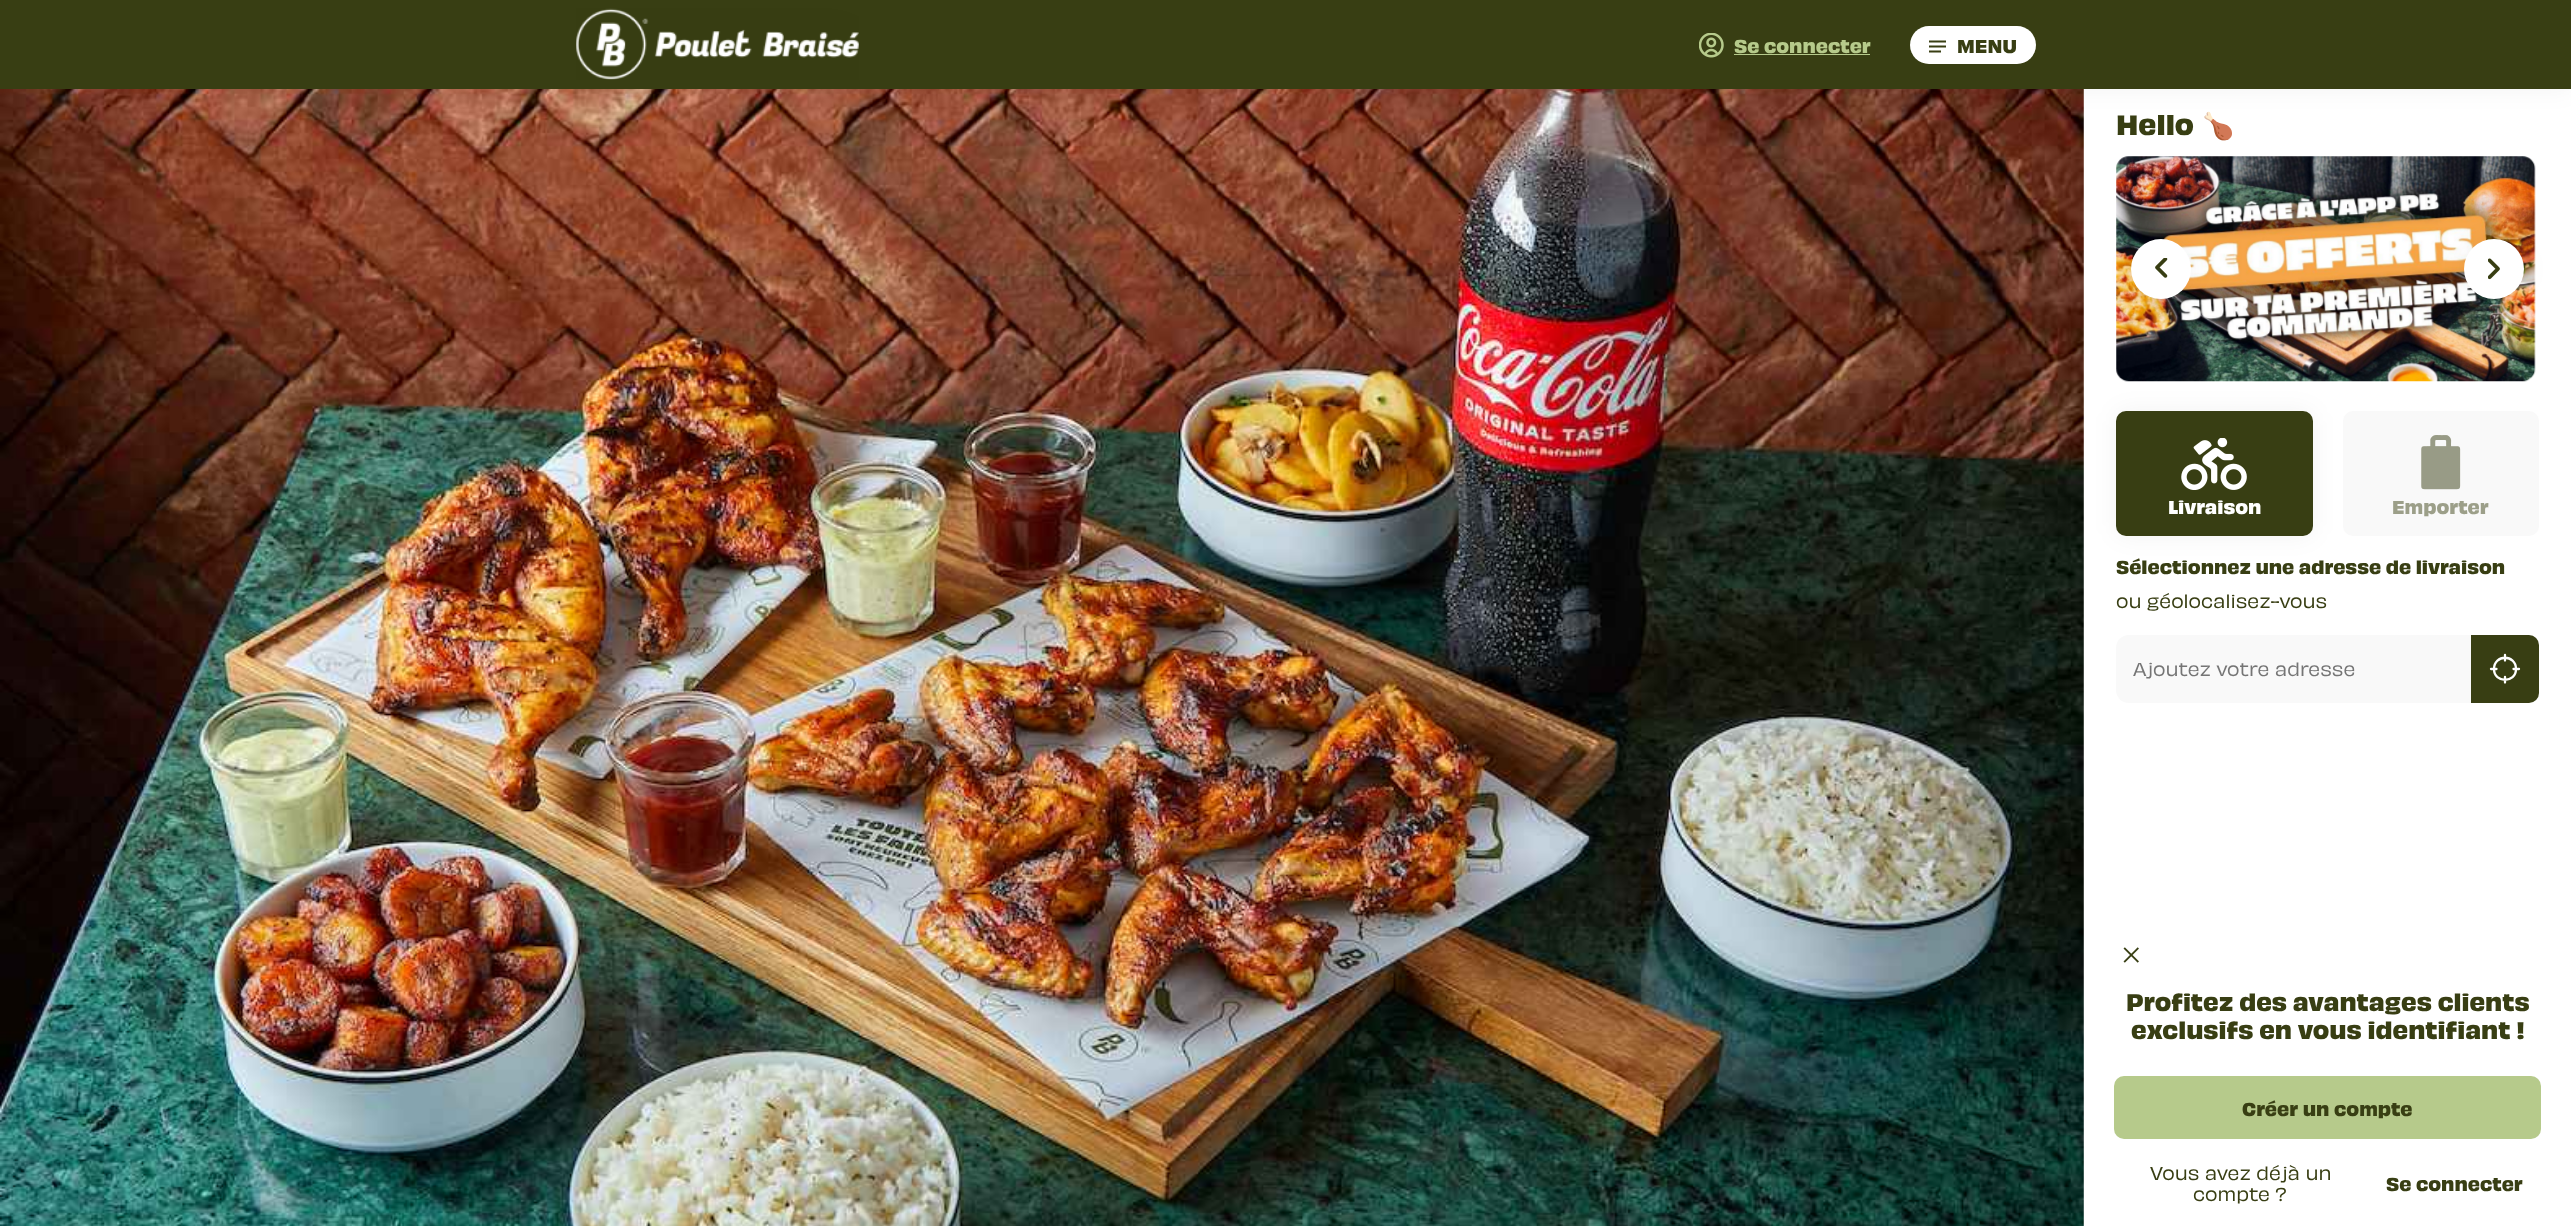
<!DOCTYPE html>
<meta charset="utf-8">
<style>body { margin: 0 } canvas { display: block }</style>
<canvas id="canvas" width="2571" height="1226"></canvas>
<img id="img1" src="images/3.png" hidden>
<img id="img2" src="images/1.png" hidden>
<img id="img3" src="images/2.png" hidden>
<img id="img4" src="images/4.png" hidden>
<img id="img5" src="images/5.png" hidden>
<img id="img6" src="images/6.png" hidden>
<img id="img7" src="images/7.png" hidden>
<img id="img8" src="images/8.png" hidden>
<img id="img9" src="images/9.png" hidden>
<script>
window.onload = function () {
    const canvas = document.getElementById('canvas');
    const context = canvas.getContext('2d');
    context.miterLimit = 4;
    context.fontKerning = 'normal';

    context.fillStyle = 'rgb(255, 255, 255)';
    context.fillRect(0, 0, 2571, 1226);
    context.drawImage(document.getElementById('img1'), 0, 89, 2084, 1137);
    context.fillStyle = 'rgba(0, 0, 0, 0.05)';
    context.filter = 'blur(17.5px)';
    context.beginPath();
    context.rect(2073, 65, 487, 1161);
    context.fill();
    context.filter = 'none';
    context.fillStyle = 'rgba(0, 0, 0, 0.08)';
    context.filter = 'blur(10px)';
    context.beginPath();
    context.rect(2086, 75, 468, 1141);
    context.fill();
    context.filter = 'none';
    context.fillStyle = 'rgb(255, 255, 255)';
    context.fillRect(2084, 89, 487, 1137);
    context.fillStyle = 'rgba(0, 0, 0, 0.05)';
    context.filter = 'blur(12.5px)';
    context.beginPath();
    context.rect(0, 0, 2571, 89);
    context.fill();
    context.filter = 'none';
    context.fillStyle = 'rgb(56, 62, 19)';
    context.fillRect(0, 0, 2571, 89);
    context.drawImage(document.getElementById('img2'), 576, 8, 283, 72);
    context.drawImage(document.getElementById('img3'), 1699, 33, 25, 25);
    context.fillStyle = 'rgb(182, 202, 139)';
    context.fillRect(1734, 54, 136, 1);
    context.fillStyle = 'rgb(255, 255, 255)';
    context.beginPath();
    context.roundRect(1910, 26, 126, 38, 19);
    context.fill();
    context.beginPath();
    context.moveTo(1929, 41.5);
    context.lineTo(1946, 41.5);
    context.moveTo(1929, 46.5);
    context.lineTo(1946, 46.5);
    context.moveTo(1929, 51.5);
    context.lineTo(1941, 51.5);
    context.strokeStyle = 'rgb(56, 62, 19)';
    context.lineWidth = 1.9;
    context.stroke();
    context.drawImage(document.getElementById('img4'), 2116, 156, 420, 226);
    context.fillStyle = 'rgba(0, 0, 0, 0.05)';
    context.filter = 'blur(12.5px)';
    context.beginPath();
    context.roundRect(2131, 239, 60, 60, 30);
    context.fill();
    context.filter = 'none';
    context.fillStyle = 'rgb(255, 255, 255)';
    context.beginPath();
    context.arc(2161, 269, 30, 0, 2 * Math.PI);
    context.fill();
    context.drawImage(document.getElementById('img5'), 2155, 258, 13, 20);
    context.fillStyle = 'rgba(0, 0, 0, 0.05)';
    context.filter = 'blur(12.5px)';
    context.beginPath();
    context.roundRect(2464, 239, 60, 60, 30);
    context.fill();
    context.filter = 'none';
    context.fillStyle = 'rgb(255, 255, 255)';
    context.beginPath();
    context.arc(2494, 269, 30, 0, 2 * Math.PI);
    context.fill();
    context.drawImage(document.getElementById('img6'), 2488, 258, 12, 22);
    context.fillStyle = 'rgba(0, 0, 0, 0.05)';
    context.filter = 'blur(12.5px)';
    context.beginPath();
    context.roundRect(2116, 411, 197, 125, 10);
    context.fill();
    context.filter = 'none';
    context.fillStyle = 'rgb(56, 62, 19)';
    context.beginPath();
    context.roundRect(2116, 411, 197, 125, 10);
    context.fill();
    context.drawImage(document.getElementById('img7'), 2181, 438, 66, 52);
    context.fillStyle = 'rgb(249, 249, 249)';
    context.beginPath();
    context.roundRect(2343, 411, 196, 125, 10);
    context.fill();
    context.drawImage(document.getElementById('img8'), 2421, 435, 40, 55);
    context.beginPath();
    context.roundRect(2116, 635, 355, 68, [13, 0, 0, 13]);
    context.fill();
    context.fillStyle = 'rgb(56, 62, 19)';
    context.beginPath();
    context.roundRect(2471, 635, 68, 68, [0, 10, 10, 0]);
    context.fill();
    context.beginPath();
    context.moveTo(2519, 669);
    context.lineTo(2513.5, 669);
    context.moveTo(2496.5, 669);
    context.lineTo(2491, 669);
    context.moveTo(2505, 660.5);
    context.lineTo(2505, 655);
    context.moveTo(2505, 682.5);
    context.lineTo(2505, 677);
    context.moveTo(2516, 669);
    context.bezierCurveTo(2516, 683.5, 2494, 683.5, 2494, 669);
    context.bezierCurveTo(2494, 654, 2516, 654, 2516, 669);
    context.closePath();
    context.strokeStyle = 'rgb(255, 255, 255)';
    context.lineWidth = 2.3;
    context.lineCap = 'round';
    context.lineJoin = 'round';
    context.stroke();
    context.drawImage(document.getElementById('img9'), 2123, 947, 16, 16);
    context.fillStyle = 'rgb(182, 202, 139)';
    context.beginPath();
    context.roundRect(2114, 1076, 427, 63, 10);
    context.fill();
    context.font = 'bold 17.5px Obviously';
    context.fillText('Se connecter', 1734, 53);
    context.fillStyle = 'rgb(56, 62, 19)';
    context.fillText('MENU', 1957, 53);
    context.font = 'bold 26px Obviously';
    context.fillText('Hello', 2116, 135);
    context.font = 'bold 26px Noto Color Emoji';
    context.fillText('🍗', 2202, 135);
    context.font = 'bold 17.5px Obviously';
    context.fillStyle = 'rgb(255, 255, 255)';
    context.fillText('Livraison', 2168, 514);
    context.fillStyle = 'rgb(156, 159, 137)';
    context.fillText('Emporter', 2392, 514);
    context.fillStyle = 'rgb(56, 62, 19)';
    context.fillText('Sélectionnez une adresse de livraison', 2116, 574);
    context.font = '600 17.5px Obviously';
    context.fillText('ou géolocalisez-vous', 2116, 608);
    context.fillStyle = 'rgb(117, 117, 117)';
    context.fillText('Ajoutez votre adresse', 2133, 676);
    context.font = 'bold 22.5px Obviously';
    context.fillStyle = 'rgb(56, 62, 19)';
    context.fillText('Profitez des avantages clients', 2126, 1011);
    context.fillText('exclusifs en vous identifiant !', 2131, 1039);
    context.font = 'bold 17.5px Obviously';
    context.fillText('Créer un compte', 2242, 1116);
    context.font = '600 17.5px Obviously';
    context.fillText('Vous avez déjà un', 2150, 1180);
    context.font = 'bold 17.5px Obviously';
    context.fillText('Se connecter', 2386, 1191);
    context.font = '600 17.5px Obviously';
    context.fillText('compte ?', 2193, 1201);
};
</script>
